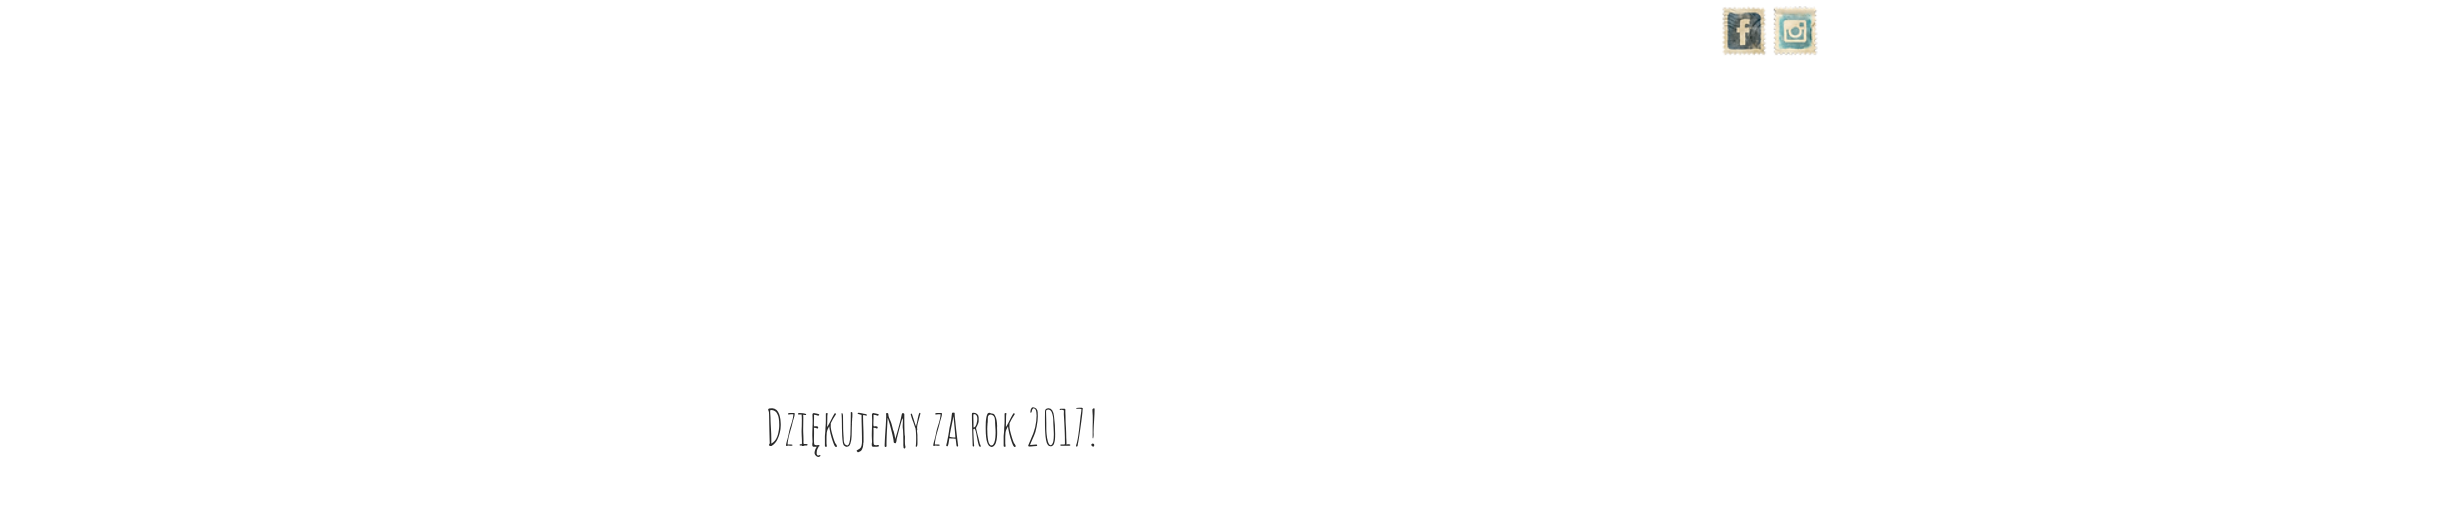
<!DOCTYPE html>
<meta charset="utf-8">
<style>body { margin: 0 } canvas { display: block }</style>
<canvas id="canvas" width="2462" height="507"></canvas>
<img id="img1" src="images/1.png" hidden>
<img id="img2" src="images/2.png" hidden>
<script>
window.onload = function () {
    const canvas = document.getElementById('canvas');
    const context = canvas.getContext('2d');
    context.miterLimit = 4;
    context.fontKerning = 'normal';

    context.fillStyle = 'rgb(255, 255, 255)';
    context.fillRect(0, 0, 2462, 507);
    context.drawImage(document.getElementById('img1'), 1722, 6, 45, 50);
    context.drawImage(document.getElementById('img2'), 1773, 6, 45, 50);
    context.font = '50px Amatic SC';
    context.fillStyle = 'rgb(42, 42, 42)';
    context.fillText('Dziękujemy za rok 2017!', 765, 446);
};
</script>
